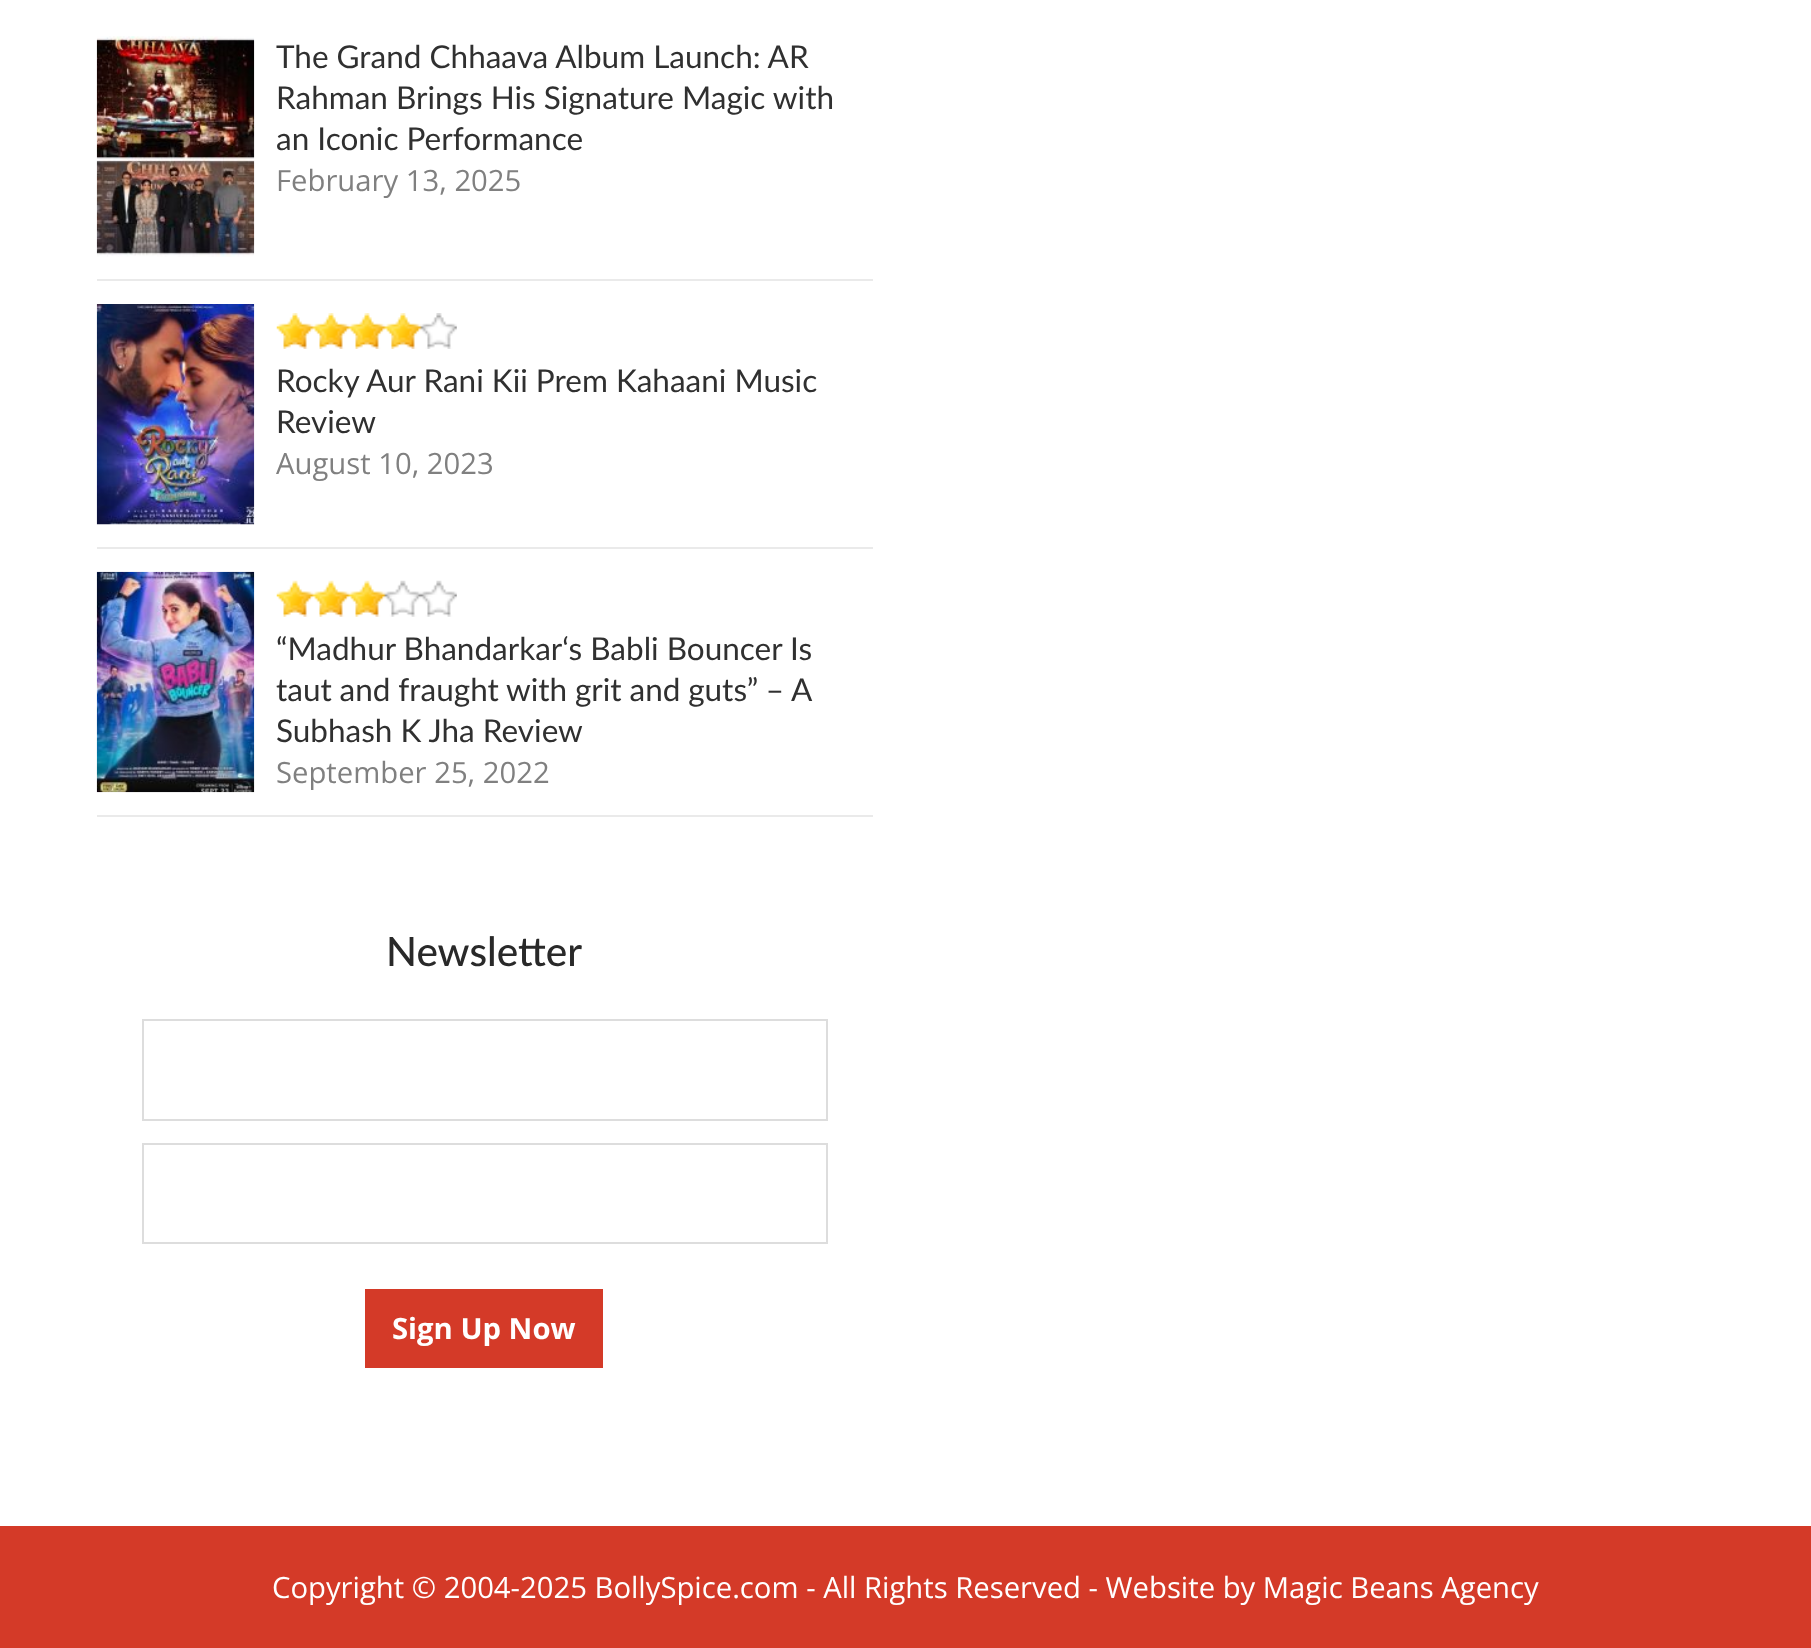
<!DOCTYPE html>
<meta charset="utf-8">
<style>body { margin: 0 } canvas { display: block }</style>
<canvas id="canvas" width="1811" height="1648"></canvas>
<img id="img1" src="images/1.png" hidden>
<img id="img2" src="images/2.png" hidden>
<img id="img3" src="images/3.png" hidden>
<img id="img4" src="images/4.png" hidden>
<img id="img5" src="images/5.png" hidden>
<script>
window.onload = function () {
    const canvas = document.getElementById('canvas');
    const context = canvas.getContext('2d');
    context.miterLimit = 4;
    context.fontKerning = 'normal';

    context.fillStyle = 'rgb(255, 255, 255)';
    context.fillRect(0, 0, 1811, 1648);
    context.fillStyle = 'rgb(234, 234, 234)';
    context.fillRect(97, 279, 776, 2);
    context.drawImage(document.getElementById('img1'), 96, 36, 159, 221);
    context.fillRect(97, 547, 776, 2);
    context.drawImage(document.getElementById('img2'), 96, 304, 159, 221);
    context.drawImage(document.getElementById('img3'), 276, 313, 181, 36);
    context.fillRect(97, 815, 776, 2);
    context.drawImage(document.getElementById('img4'), 96, 571, 159, 222);
    context.drawImage(document.getElementById('img5'), 276, 580, 181, 37);
    context.strokeStyle = 'rgb(221, 221, 221)';
    context.lineWidth = 2;
    context.strokeRect(143, 1020, 684, 100);
    context.strokeRect(143, 1144, 684, 99);
    context.fillStyle = 'rgb(212, 58, 40)';
    context.fillRect(365, 1289, 238, 79);
    context.fillRect(0, 1526, 1811, 122);
    context.font = '31.5px Lato';
    context.fillStyle = 'rgb(48, 48, 48)';
    context.fillText('The Grand Chhaava Album Launch: AR', 276, 68);
    context.fillText('Rahman Brings His Signature Magic with', 276, 109);
    context.fillText('an Iconic Performance', 276, 150);
    context.font = '29.25px Open Sans';
    context.fillStyle = 'rgb(128, 128, 128)';
    context.fillText('February 13, 2025', 276, 191);
    context.font = '31.5px Lato';
    context.fillStyle = 'rgb(48, 48, 48)';
    context.fillText('Rocky Aur Rani Kii Prem Kahaani Music', 276, 392);
    context.fillText('Review', 276, 433);
    context.font = '29.25px Open Sans';
    context.fillStyle = 'rgb(128, 128, 128)';
    context.fillText('August 10, 2023', 276, 474);
    context.font = '31.5px Lato';
    context.fillStyle = 'rgb(48, 48, 48)';
    context.fillText('“Madhur Bhandarkar‘s Babli Bouncer Is', 276, 660);
    context.wordSpacing = '-0.25px';
    context.fillText('taut and fraught with grit and guts” – A', 276, 701);
    context.wordSpacing = '0px';
    context.fillText('Subhash K Jha Review', 276, 742);
    context.font = '29.25px Open Sans';
    context.fillStyle = 'rgb(128, 128, 128)';
    context.fillText('September 25, 2022', 276, 783);
    context.font = '500 40.5px Lato';
    context.fillStyle = 'rgb(41, 41, 41)';
    context.fillText('Newsletter', 386, 966);
    context.font = 'bold 29.25px Open Sans';
    context.fillStyle = 'rgb(255, 255, 255)';
    context.fillText('Sign Up Now', 392, 1339);
    context.font = '29.25px Open Sans';
    context.fillText('Copyright © 2004-2025 BollySpice.com - All Rights Reserved - Website by Magic Beans Agency', 272, 1598);
};
</script>
